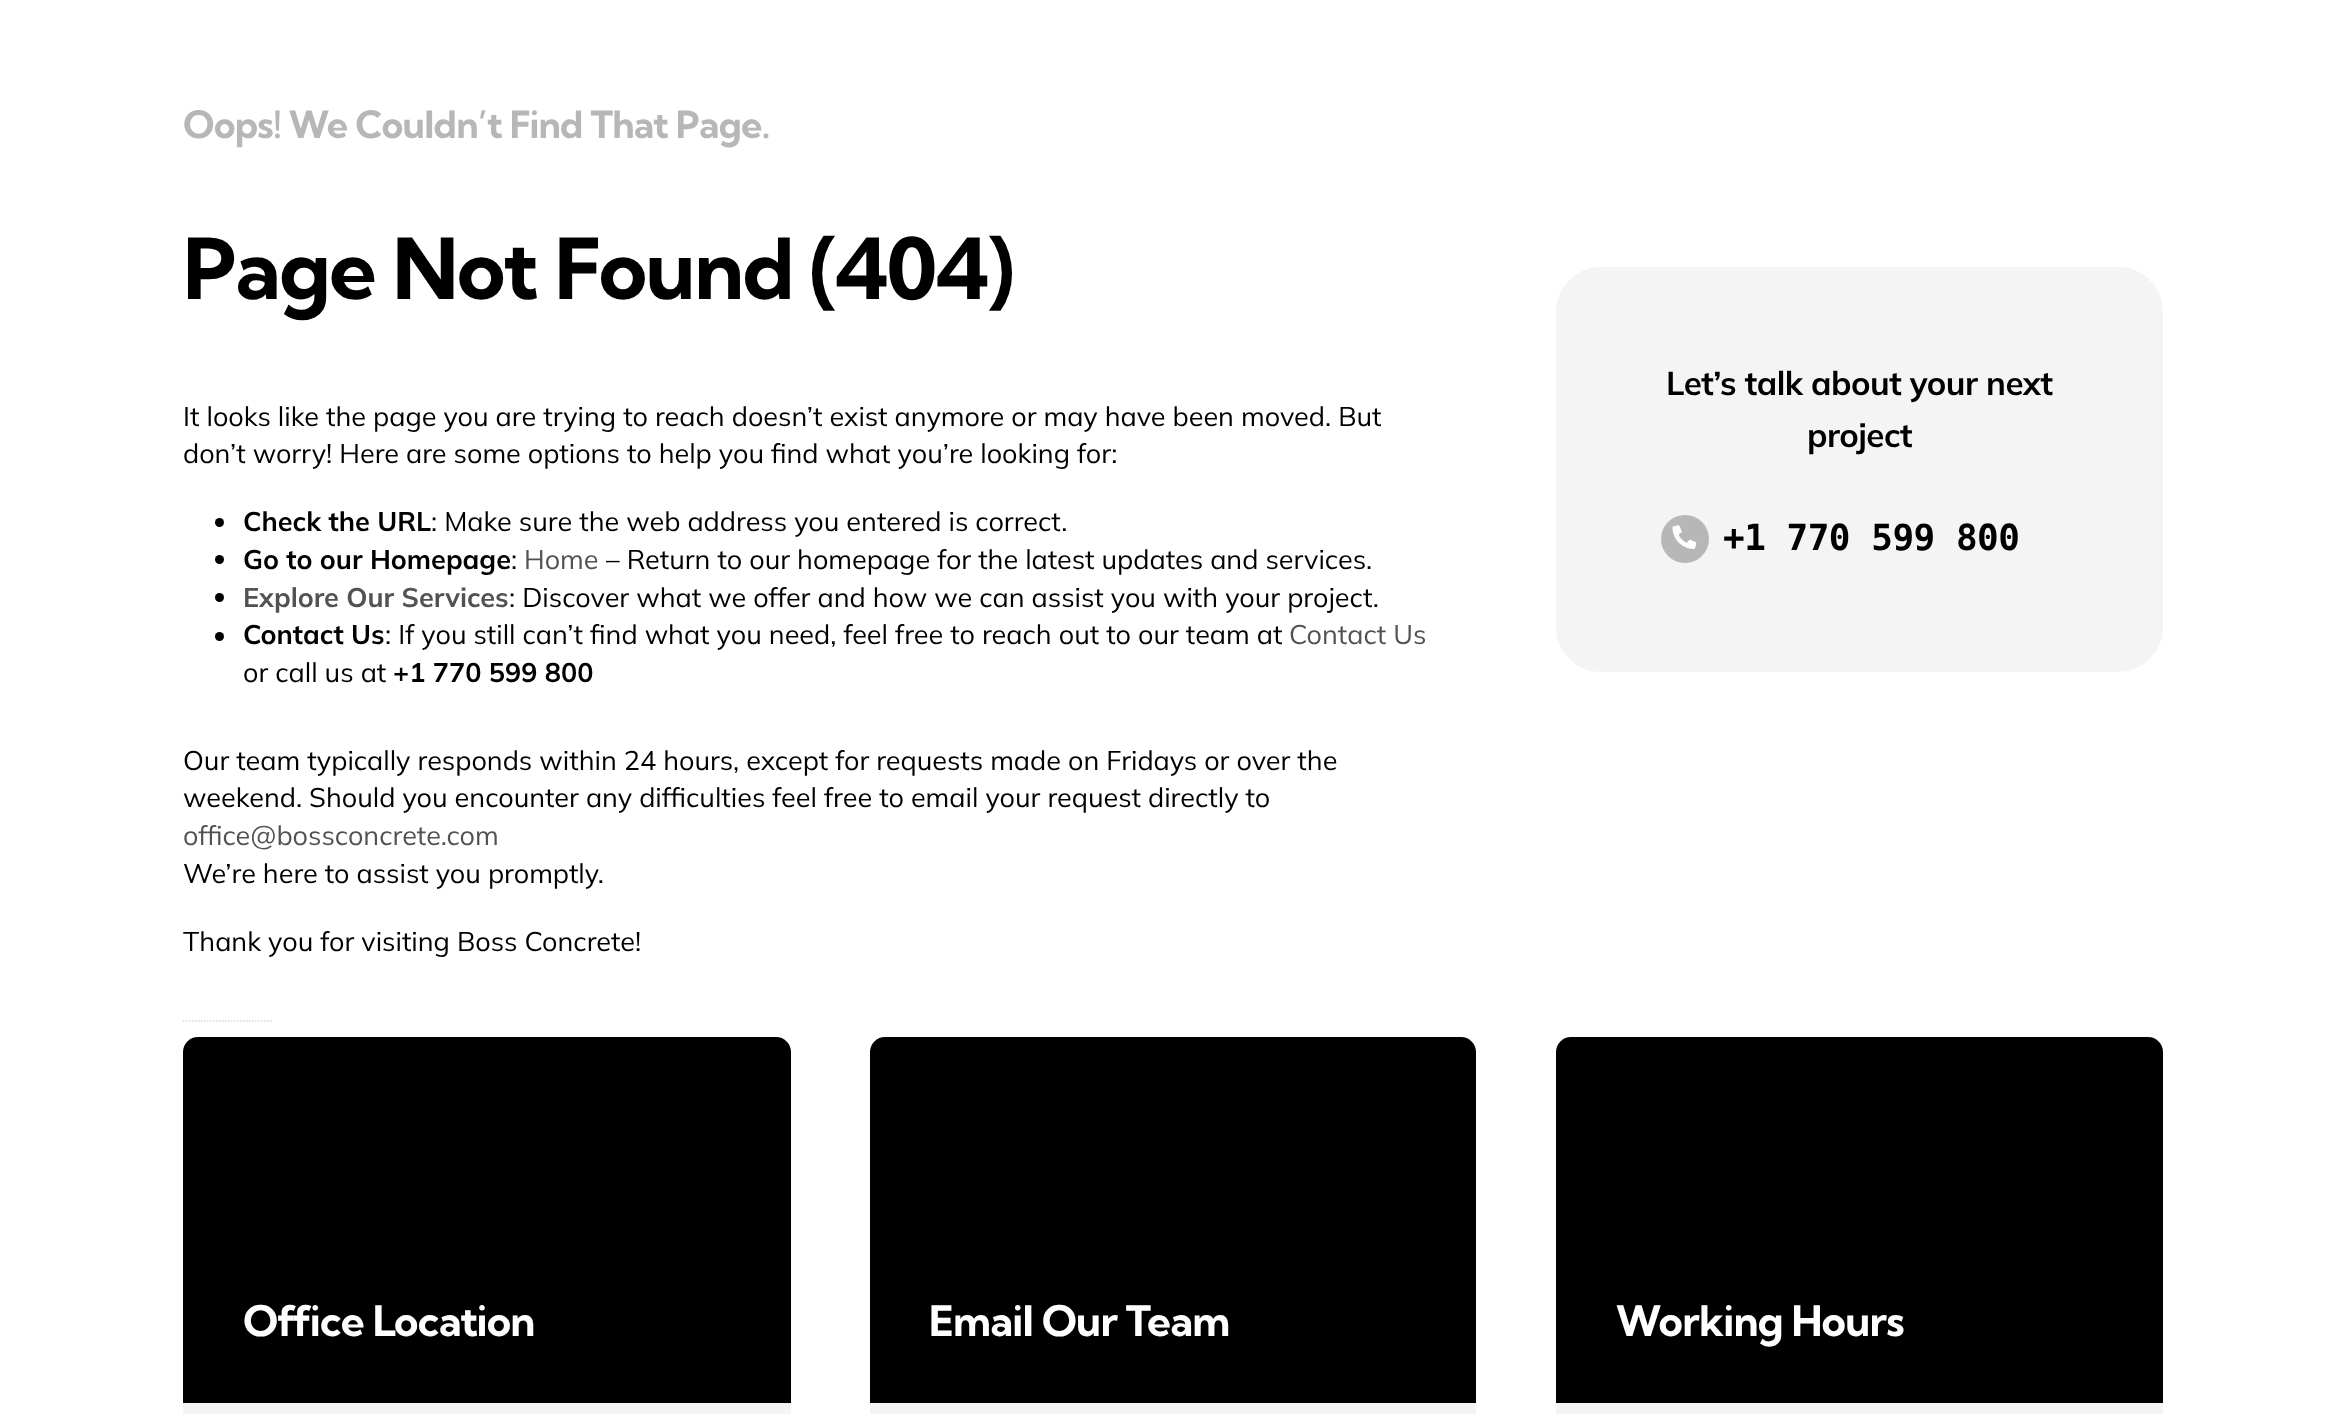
<!DOCTYPE html>
<meta charset="utf-8">
<style>body { margin: 0 } canvas { display: block }</style>
<canvas id="canvas" width="2346" height="1414"></canvas>
<img id="img1" src="images/1.png" hidden>
<script>
window.onload = function () {
    const canvas = document.getElementById('canvas');
    const context = canvas.getContext('2d');
    context.miterLimit = 4;
    context.fontKerning = 'normal';

    context.fillStyle = 'rgb(255, 255, 255)';
    context.fillRect(0, 0, 2346, 1414);
    context.fillStyle = 'rgb(0, 0, 0)';
    context.beginPath();
    context.arc(219.5, 522.5, 4.5, 0, 2 * Math.PI);
    context.fill();
    context.beginPath();
    context.arc(219.5, 559.5, 4.5, 0, 2 * Math.PI);
    context.fill();
    context.beginPath();
    context.arc(219.5, 597.5, 4.5, 0, 2 * Math.PI);
    context.fill();
    context.beginPath();
    context.arc(219.5, 636.5, 4.5, 0, 2 * Math.PI);
    context.fill();
    context.beginPath();
    context.moveTo(183, 1021);
    context.lineTo(273, 1021);
    context.strokeStyle = 'rgb(214, 214, 214)';
    context.lineWidth = 1.5;
    context.setLineDash([1.5, 1.5]);
    context.stroke();
    context.fillStyle = 'rgb(244, 244, 244)';
    context.beginPath();
    context.roundRect(1571, 282, 577, 375, 30);
    context.fill();
    context.strokeStyle = 'rgb(244, 244, 244)';
    context.lineWidth = 30;
    context.setLineDash([]);
    context.stroke();
    context.fillStyle = 'rgb(183, 183, 183)';
    context.beginPath();
    context.arc(1685, 539, 24, 0, 2 * Math.PI);
    context.fill();
    context.drawImage(document.getElementById('img1'), 1672, 525, 25, 24);
    context.fillStyle = 'rgb(244, 244, 244)';
    context.beginPath();
    context.roundRect(183, 1037, 608, 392, 15);
    context.fill();
    context.fillStyle = 'rgb(0, 0, 0)';
    context.beginPath();
    context.roundRect(183, 1037, 608, 366, [15, 15, 0, 0]);
    context.fill();
    context.fillStyle = 'rgb(244, 244, 244)';
    context.beginPath();
    context.roundRect(870, 1037, 606, 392, 15);
    context.fill();
    context.fillStyle = 'rgb(0, 0, 0)';
    context.beginPath();
    context.roundRect(870, 1037, 606, 366, [15, 15, 0, 0]);
    context.fill();
    context.fillStyle = 'rgb(244, 244, 244)';
    context.beginPath();
    context.roundRect(1556, 1037, 607, 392, 15);
    context.fill();
    context.fillStyle = 'rgb(0, 0, 0)';
    context.beginPath();
    context.roundRect(1556, 1037, 607, 366, [15, 15, 0, 0]);
    context.fill();
    context.letterSpacing = '-0.75px';
    context.font = 'bold 37.5px Kumbh Sans';
    context.fillStyle = 'rgb(183, 183, 183)';
    context.fillText('Oops! We Couldn’t Find That Page.', 183, 138);
    context.letterSpacing = '-1.7px';
    context.font = 'bold 84px Kumbh Sans';
    context.fillStyle = 'rgb(0, 0, 0)';
    context.fillText('Page Not Found (404)', 183, 299);
    context.letterSpacing = '0px';
    context.font = '27px Mulish';
    context.fillText('It looks like the page you are trying to reach doesn’t exist anymore or may have been moved. But', 183, 426);
    context.fillText('don’t worry! Here are some options to help you find what you’re looking for:', 183, 463);
    context.font = 'bold 27px Mulish';
    context.fillText('Check the URL', 243, 531);
    context.font = '27px Mulish';
    context.fillText(': Make sure the web address you entered is correct.', 431, 531);
    context.font = 'bold 27px Mulish';
    context.fillText('Go to our Homepage', 243, 569);
    context.font = '27px Mulish';
    context.fillText(':', 511, 569);
    context.fillStyle = 'rgb(82, 82, 82)';
    context.fillText('Home', 524, 569);
    context.fillStyle = 'rgb(0, 0, 0)';
    context.fillText('– Return to our homepage for the latest updates and services.', 606, 569);
    context.font = 'bold 27px Mulish';
    context.fillStyle = 'rgb(82, 82, 82)';
    context.fillText('Explore Our Services', 243, 607);
    context.font = '27px Mulish';
    context.fillStyle = 'rgb(0, 0, 0)';
    context.fillText(': Discover what we offer and how we can assist you with your project.', 509, 607);
    context.font = 'bold 27px Mulish';
    context.fillText('Contact Us', 243, 644);
    context.font = '27px Mulish';
    context.fillText(': If you still can’t find what you need, feel free to reach out to our team at', 385, 644);
    context.fillStyle = 'rgb(82, 82, 82)';
    context.fillText('Contact Us', 1289, 644);
    context.fillStyle = 'rgb(0, 0, 0)';
    context.fillText('or call us at', 243, 682);
    context.font = 'bold 27px Mulish';
    context.fillText('+1 770 599 800', 393, 682);
    context.font = '27px Mulish';
    context.fillText('Our team typically responds within 24 hours, except for requests made on Fridays or over the', 183, 770);
    context.fillText('weekend. Should you encounter any difficulties feel free to email your request directly to', 183, 807);
    context.fillStyle = 'rgb(82, 82, 82)';
    context.fillText('office@bossconcrete.com', 183, 845);
    context.fillStyle = 'rgb(0, 0, 0)';
    context.fillText('We’re here to assist you promptly.', 183, 883);
    context.fillText('Thank you for visiting Boss Concrete!', 183, 951);
    context.letterSpacing = '-0.5px';
    context.font = 'bold 33px Mulish';
    context.fillText('Let’s talk about your next', 1666, 395);
    context.fillText('project', 1807, 447);
    context.font = 'bold 36px DejaVu Sans Mono';
    context.fillText('+1 770 599 800', 1723, 550);
    context.letterSpacing = '-0.8px';
    context.font = 'bold 42px Kumbh Sans';
    context.fillStyle = 'rgb(255, 255, 255)';
    context.fillText('Office Location', 243, 1336);
    context.fillText('Email Our Team', 929, 1336);
    context.fillText('Working Hours', 1616, 1336);
};
</script>
